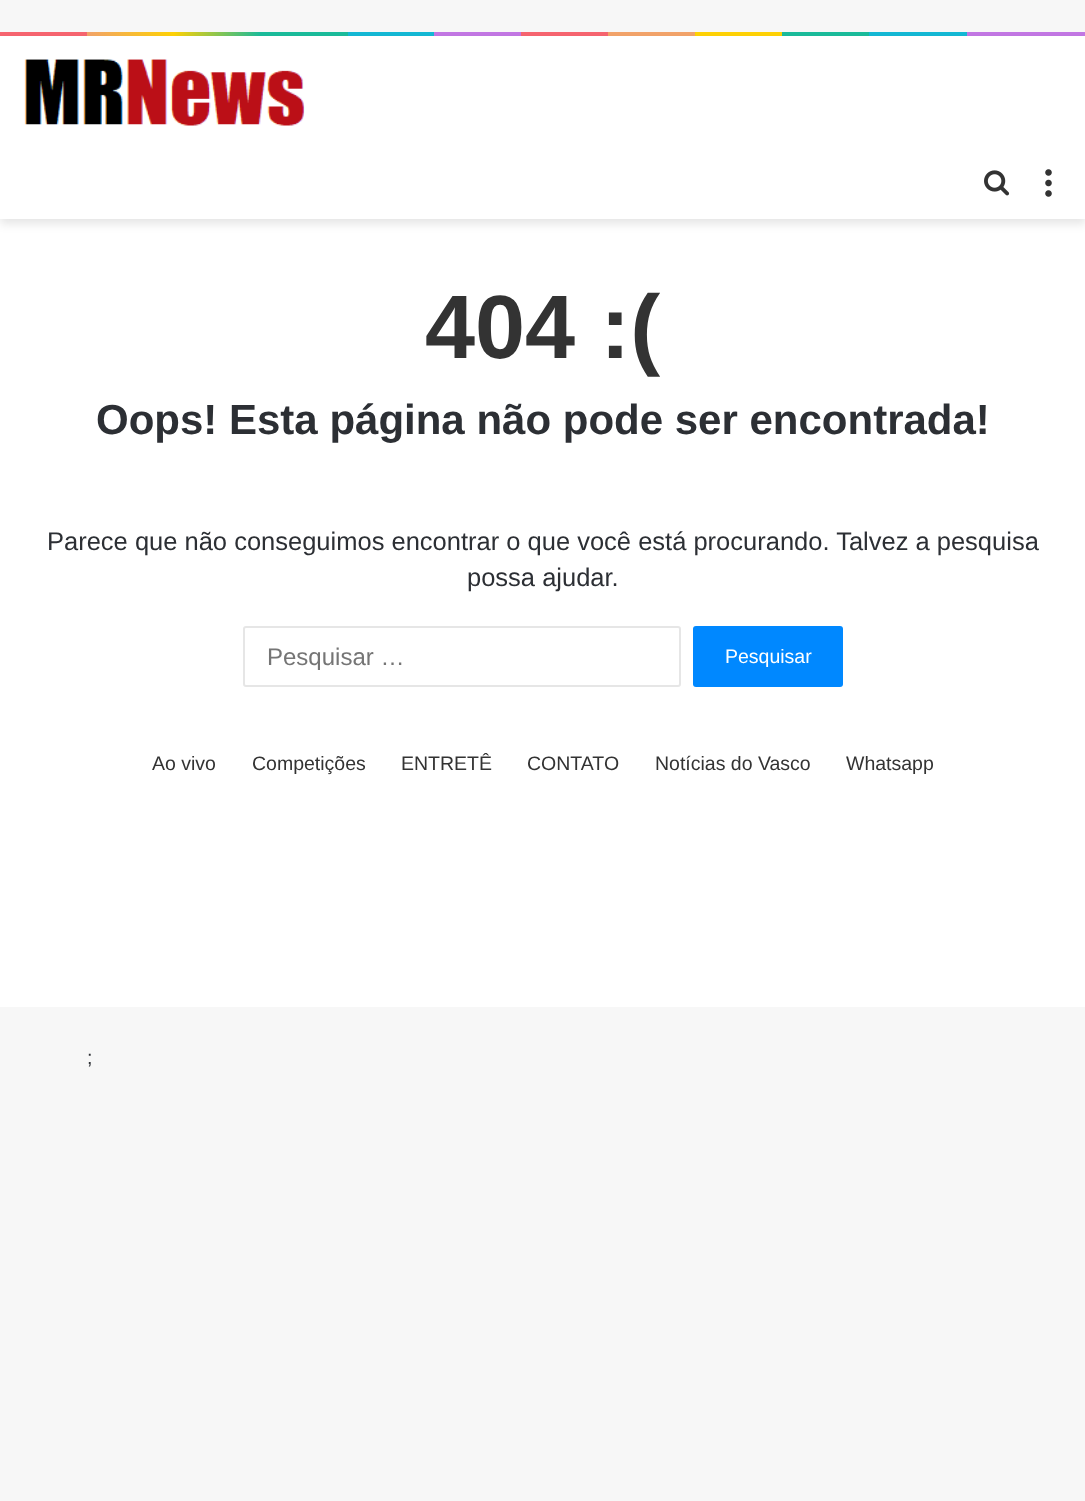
<!DOCTYPE html>
<meta charset="utf-8">
<style>body { margin: 0 } canvas { display: block }</style>
<canvas id="canvas" width="1085" height="1501"></canvas>
<img id="img1" src="images/1.png" hidden>
<img id="img2" src="images/2.png" hidden>
<img id="img3" src="images/3.png" hidden>
<script>
window.onload = function () {
    const canvas = document.getElementById('canvas');
    const context = canvas.getContext('2d');
    context.miterLimit = 4;
    context.fontKerning = 'normal';
    let gradient;

    context.fillStyle = 'rgb(247, 247, 247)';
    context.fillRect(0, 0, 1085, 1501);
    context.fillStyle = 'rgb(255, 255, 255)';
    context.fillRect(0, 219, 1085, 788);
    gradient = context.createLinearGradient(0, 34, 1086, 34);
    gradient.addColorStop(0, 'rgb(247, 101, 112)');
    gradient.addColorStop(0.08, 'rgb(247, 101, 112)');
    gradient.addColorStop(0.08, 'rgb(243, 164, 107)');
    gradient.addColorStop(0.16, 'rgb(255, 210, 5)');
    gradient.addColorStop(0.24, 'rgb(27, 188, 155)');
    gradient.addColorStop(0.32, 'rgb(27, 188, 155)');
    gradient.addColorStop(0.32, 'rgb(20, 185, 213)');
    gradient.addColorStop(0.4, 'rgb(20, 185, 213)');
    gradient.addColorStop(0.4, 'rgb(195, 119, 228)');
    gradient.addColorStop(0.48, 'rgb(195, 119, 228)');
    gradient.addColorStop(0.48, 'rgb(247, 101, 112)');
    gradient.addColorStop(0.56, 'rgb(247, 101, 112)');
    gradient.addColorStop(0.56, 'rgb(243, 164, 107)');
    gradient.addColorStop(0.64, 'rgb(243, 164, 107)');
    gradient.addColorStop(0.64, 'rgb(255, 210, 5)');
    gradient.addColorStop(0.72, 'rgb(255, 210, 5)');
    gradient.addColorStop(0.72, 'rgb(27, 188, 155)');
    gradient.addColorStop(0.8, 'rgb(27, 188, 155)');
    gradient.addColorStop(0.8, 'rgb(20, 185, 213)');
    gradient.addColorStop(0.89, 'rgb(20, 185, 213)');
    gradient.addColorStop(0.89, 'rgb(195, 119, 228)');
    gradient.addColorStop(1, 'rgb(195, 119, 228)');
    context.fillStyle = gradient;
    context.fillRect(0, 32, 1085, 4);
    context.fillStyle = 'rgba(0, 0, 0, 0.1)';
    context.filter = 'blur(5px)';
    context.beginPath();
    context.rect(0, 41, 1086, 183);
    context.fill();
    context.filter = 'none';
    context.fillStyle = 'rgb(255, 255, 255)';
    context.fillRect(0, 36, 1085, 183);
    context.drawImage(document.getElementById('img1'), 24, 59, 281, 67);
    context.drawImage(document.getElementById('img2'), 984, 170, 26, 26);
    context.drawImage(document.getElementById('img3'), 1045, 169, 7, 28);
    context.beginPath();
    context.roundRect(244, 627, 436, 59, 2);
    context.strokeStyle = 'rgb(230, 230, 230)';
    context.lineWidth = 2;
    context.stroke();
    context.fillStyle = 'rgb(0, 136, 255)';
    context.beginPath();
    context.roundRect(693, 626, 150, 61, 3);
    context.fill();
    context.font = 'bold 90px Liberation Sans';
    context.fillStyle = 'rgb(51, 51, 51)';
    context.fillText('404 :(', 425, 358);
    context.font = 'bold 42px Liberation Sans';
    context.fillStyle = 'rgb(44, 47, 52)';
    context.fillText('Oops! Esta página não pode ser encontrada!', 96, 434);
    context.font = '25.5px Liberation Sans';
    context.fillText('Parece que não conseguimos encontrar o que você está procurando. Talvez a pesquisa', 47, 550);
    context.fillText('possa ajudar.', 467, 586);
    context.font = '24px Liberation Sans';
    context.fillStyle = 'rgb(117, 117, 117)';
    context.fillText('Pesquisar …', 267, 665);
    context.font = '19.5px Liberation Sans';
    context.fillStyle = 'rgb(255, 255, 255)';
    context.fillText('Pesquisar', 725, 663);
    context.fillStyle = 'rgb(51, 51, 51)';
    context.fillText('Ao vivo', 152, 770);
    context.fillText('Competições', 252, 770);
    context.fillText('ENTRETÊ', 401, 770);
    context.fillText('CONTATO', 527, 770);
    context.fillText('Notícias do Vasco', 655, 770);
    context.fillText('Whatsapp', 846, 770);
    context.fillStyle = 'rgb(44, 47, 52)';
    context.fillText(';', 87, 1064);
};
</script>
